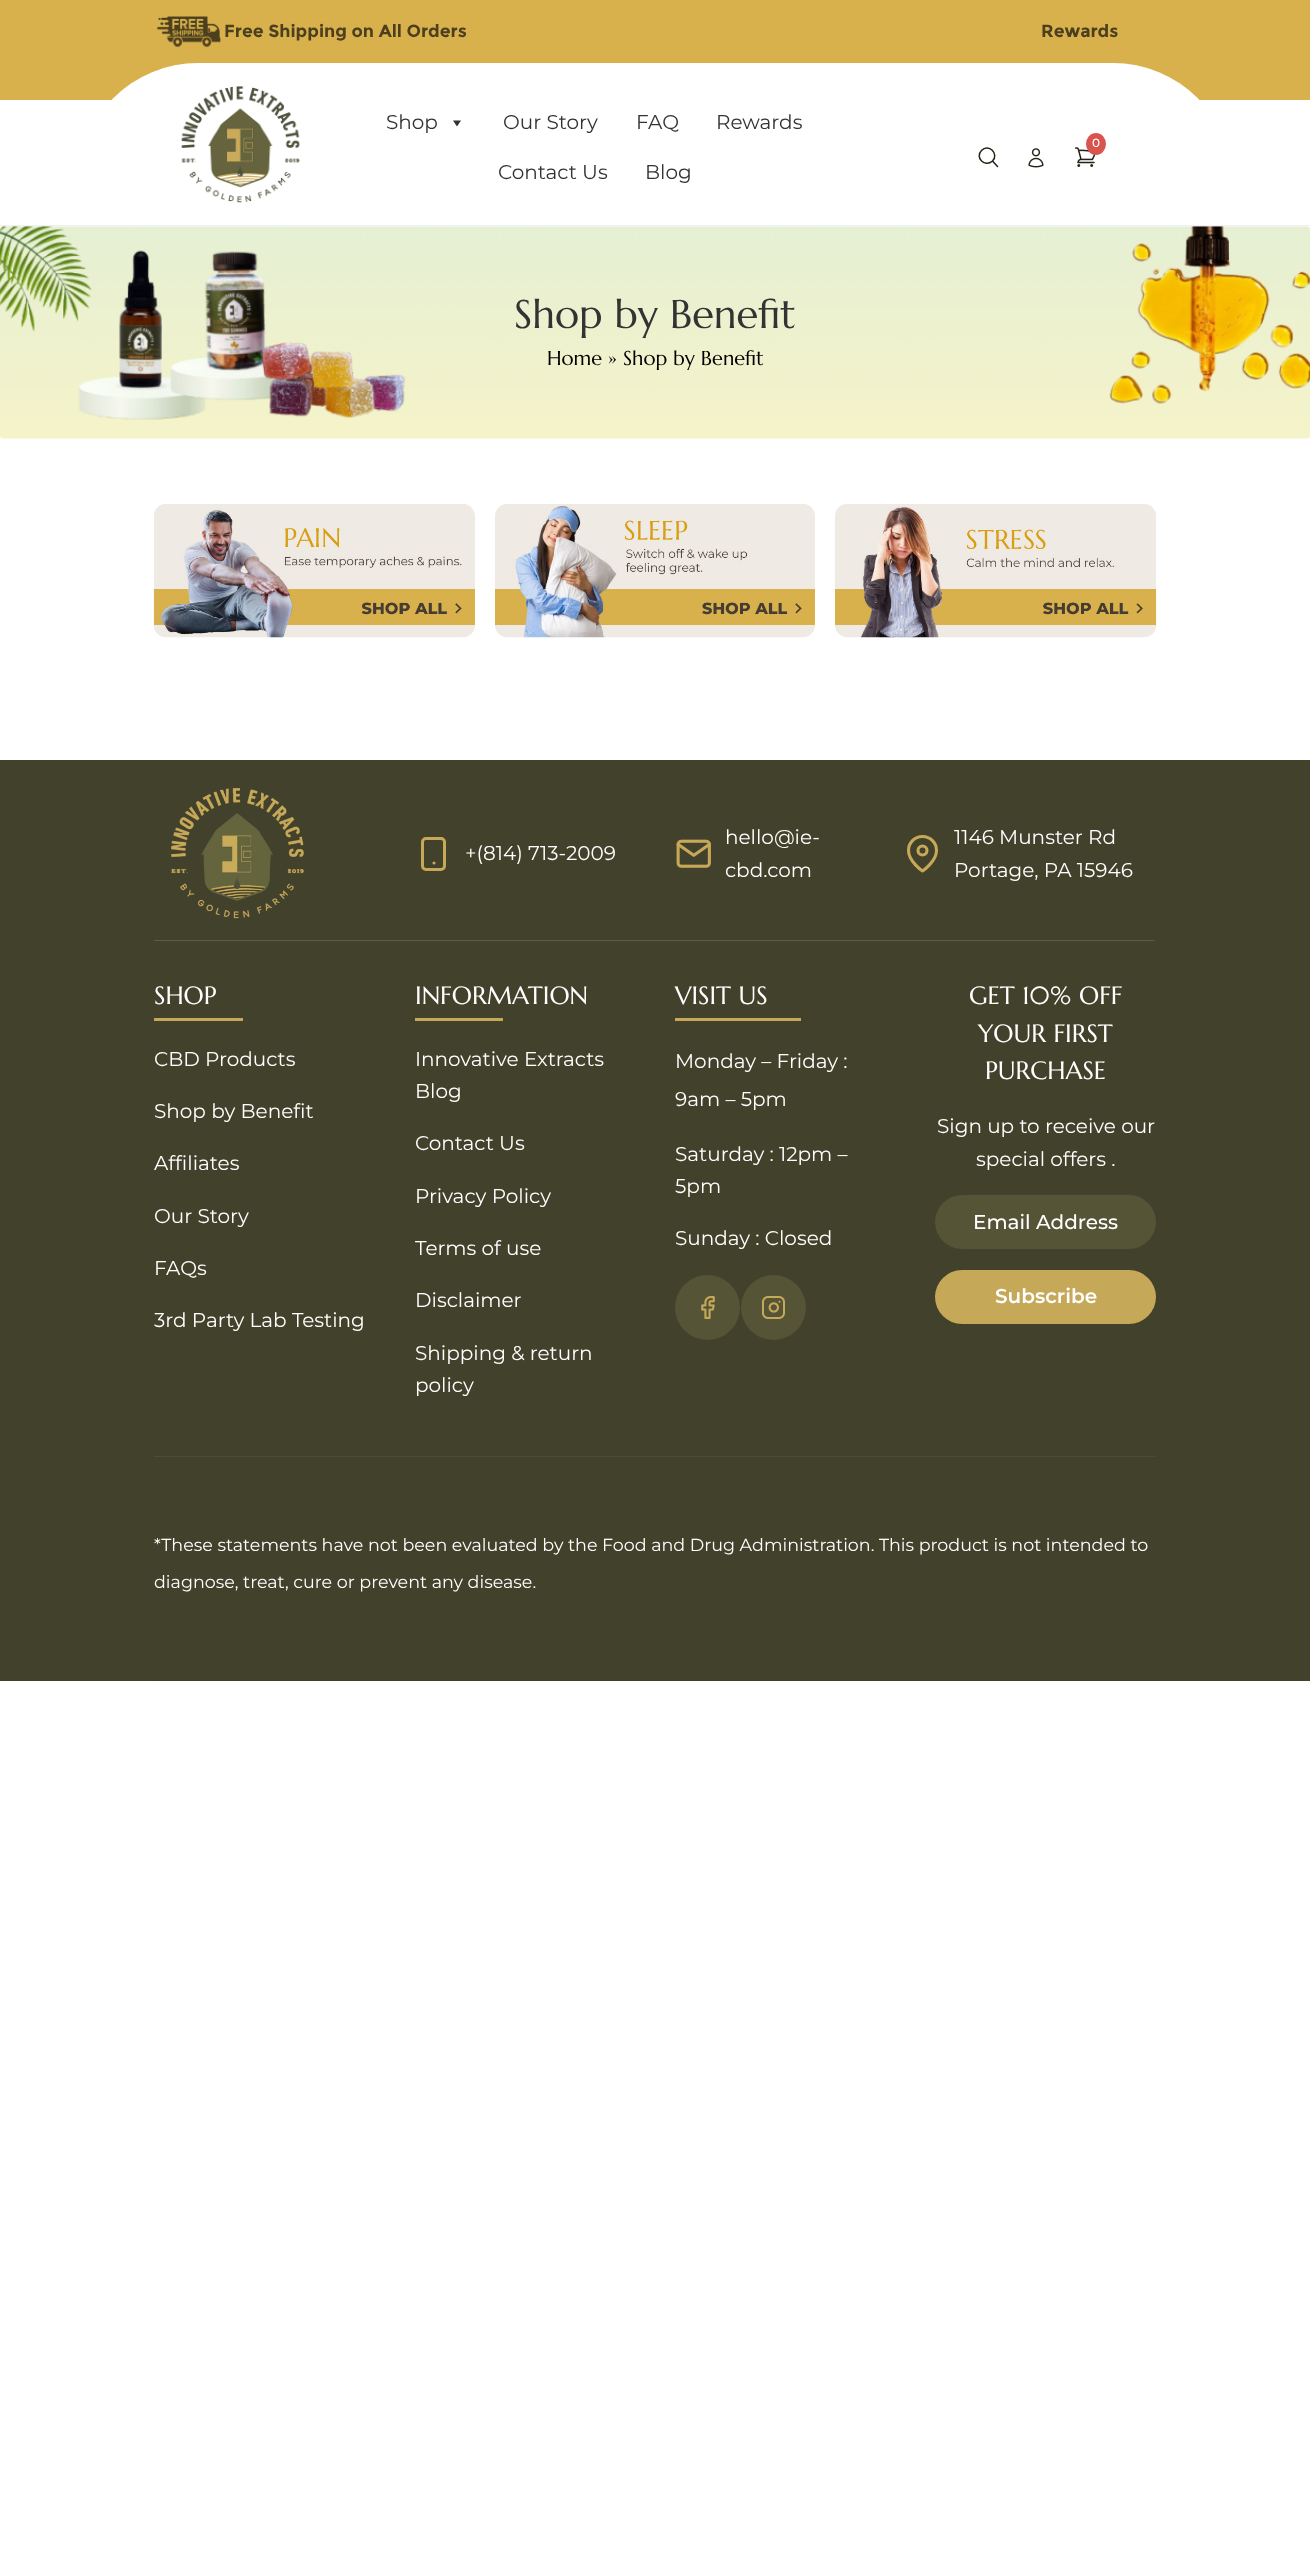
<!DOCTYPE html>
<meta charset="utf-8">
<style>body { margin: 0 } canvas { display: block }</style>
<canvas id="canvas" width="1310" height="2555"></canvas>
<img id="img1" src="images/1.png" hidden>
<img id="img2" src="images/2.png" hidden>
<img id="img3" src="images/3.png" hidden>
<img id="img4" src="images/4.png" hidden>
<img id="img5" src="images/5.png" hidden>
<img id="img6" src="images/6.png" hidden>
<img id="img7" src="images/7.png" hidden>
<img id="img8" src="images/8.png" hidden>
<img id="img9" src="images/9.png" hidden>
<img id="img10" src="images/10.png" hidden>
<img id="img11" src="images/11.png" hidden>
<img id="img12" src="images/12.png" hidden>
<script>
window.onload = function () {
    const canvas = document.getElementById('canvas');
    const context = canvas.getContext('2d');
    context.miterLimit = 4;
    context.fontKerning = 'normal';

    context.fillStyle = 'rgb(255, 255, 255)';
    context.fillRect(0, 0, 1310, 2555);
    context.fillStyle = 'rgb(216, 177, 77)';
    context.fillRect(0, 0, 1310, 100);
    context.drawImage(document.getElementById('img1'), 156, 16, 65, 32);
    context.fillStyle = 'rgb(255, 255, 255)';
    context.beginPath();
    context.roundRect(78, 63, 1155, 375, 120);
    context.fill();
    context.fillStyle = 'rgb(240, 240, 240)';
    context.fillRect(0, 225, 1310, 1);
    context.drawImage(document.getElementById('img2'), 181, 86, 119, 117);
    context.fillStyle = 'rgb(51, 51, 51)';
    context.beginPath();
    context.moveTo(461, 120.5);
    context.lineTo(457, 126.5);
    context.lineTo(453, 120.5);
    context.closePath();
    context.fill();
    context.drawImage(document.getElementById('img3'), 1075, 147, 21, 20);
    context.fillStyle = 'rgb(217, 83, 79)';
    context.beginPath();
    context.ellipse(1096, 144, 10, 11, 0, 0, 2 * Math.PI);
    context.fill();
    context.beginPath();
    context.moveTo(997.5, 166.5);
    context.lineTo(992.5, 161);
    context.moveTo(992.5, 161);
    context.bezierCurveTo(999.5, 154, 988.5, 143, 981.5, 150.5);
    context.bezierCurveTo(974.5, 157.5, 985, 168, 992.5, 161);
    context.closePath();
    context.strokeStyle = 'rgb(35, 34, 20)';
    context.lineWidth = 1.5;
    context.lineCap = 'round';
    context.lineJoin = 'round';
    context.stroke();
    context.drawImage(document.getElementById('img4'), 1028, 148, 16, 20);
    context.drawImage(document.getElementById('img5'), 0, 226, 1310, 213);
    context.drawImage(document.getElementById('img6'), 153, 504, 322, 134);
    context.drawImage(document.getElementById('img7'), 495, 504, 320, 134);
    context.drawImage(document.getElementById('img8'), 835, 504, 322, 134);
    context.fillStyle = 'rgb(66, 65, 43)';
    context.fillRect(0, 760, 1310, 921);
    context.fillStyle = 'rgb(63, 62, 41)';
    context.fillRect(154, 1680, 1002, 1);
    context.drawImage(document.getElementById('img9'), 171, 787, 133, 132);
    context.beginPath();
    context.roundRect(422.5, 838.5, 22, 31, 3.5);
    context.strokeStyle = 'rgb(198, 168, 89)';
    context.lineWidth = 3;
    context.lineJoin = 'miter';
    context.stroke();
    context.beginPath();
    context.moveTo(434, 863);
    context.lineTo(434, 863);
    context.lineWidth = 3.1;
    context.lineJoin = 'round';
    context.stroke();
    context.drawImage(document.getElementById('img10'), 676, 839, 35, 29);
    context.beginPath();
    context.moveTo(936.5, 850.5);
    context.bezierCurveTo(936.5, 861.5, 922.5, 871, 922.5, 871);
    context.bezierCurveTo(922.5, 871, 908.5, 861.5, 908.5, 850.5);
    context.bezierCurveTo(908.5, 843, 914.5, 836.5, 922.5, 836.5);
    context.bezierCurveTo(930.5, 836.5, 936.5, 843, 936.5, 850.5);
    context.closePath();
    context.stroke();
    context.beginPath();
    context.arc(922.5, 850.5, 4.5, 0, 2 * Math.PI);
    context.stroke();
    context.fillStyle = 'rgb(92, 92, 73)';
    context.fillRect(154, 940, 1001, 1);
    context.fillStyle = 'rgb(198, 168, 89)';
    context.fillRect(154, 1018, 89, 3);
    context.fillRect(415, 1018, 88, 3);
    context.fillRect(675, 1018, 126, 3);
    context.fillStyle = 'rgb(85, 84, 55)';
    context.beginPath();
    context.arc(707.5, 1307.5, 32.5, 0, 2 * Math.PI);
    context.fill();
    context.drawImage(document.getElementById('img11'), 701, 1296, 14, 23);
    context.beginPath();
    context.arc(773.5, 1307.5, 32.5, 0, 2 * Math.PI);
    context.fill();
    context.drawImage(document.getElementById('img12'), 762, 1296, 23, 23);
    context.beginPath();
    context.roundRect(935, 1195, 221, 54, 27);
    context.fill();
    context.fillStyle = 'rgb(198, 168, 89)';
    context.beginPath();
    context.roundRect(935, 1270, 221, 54, 27);
    context.fill();
    context.fillStyle = 'rgb(77, 76, 56)';
    context.fillRect(154, 1456, 1001, 1);
    context.font = 'bold 17.5px Montserrat';
    context.fillStyle = 'rgb(75, 63, 29)';
    context.fillText('Free Shipping on All Orders', 224, 37);
    context.fillText('Rewards', 1041, 37);
    context.font = '20px Montserrat';
    context.fillStyle = 'rgb(51, 51, 51)';
    context.fillText('Shop', 386, 129);
    context.fillText('Our Story', 503, 129);
    context.fillText('FAQ', 636, 129);
    context.fillText('Rewards', 716, 129);
    context.fillText('Contact Us', 498, 179);
    context.fillText('Blog', 645, 179);
    context.font = '500 12px Montserrat';
    context.fillStyle = 'rgb(255, 255, 255)';
    context.fillText('0', 1092, 147);
    context.font = '40px Marcellus';
    context.fillStyle = 'rgb(51, 51, 51)';
    context.fillText('Shop by Benefit', 514, 328);
    context.font = '20px Marcellus';
    context.fillStyle = 'rgb(0, 0, 0)';
    context.fillText('Home » Shop by Benefit', 547, 365);
    context.font = '20px Montserrat';
    context.fillStyle = 'rgb(255, 255, 255)';
    context.fillText('+(814) 713-2009', 465, 860);
    context.fillText('hello@ie-', 725, 844);
    context.fillText('cbd.com', 725, 877);
    context.fillText('1146 Munster Rd', 954, 844);
    context.fillText('Portage, PA 15946', 954, 877);
    context.font = '25px Marcellus';
    context.fillText('SHOP', 154, 1004);
    context.font = '20px Montserrat';
    context.fillText('CBD Products', 154, 1066);
    context.fillText('Shop by Benefit', 154, 1118);
    context.fillText('Affiliates', 154, 1170);
    context.fillText('Our Story', 154, 1223);
    context.fillText('FAQs', 154, 1275);
    context.fillText('3rd Party Lab Testing', 154, 1327);
    context.font = '25px Marcellus';
    context.fillText('INFORMATION', 415, 1004);
    context.font = '20px Montserrat';
    context.fillText('Innovative Extracts', 415, 1066);
    context.fillText('Blog', 415, 1098);
    context.fillText('Contact Us', 415, 1150);
    context.fillText('Privacy Policy', 415, 1203);
    context.fillText('Terms of use', 415, 1255);
    context.fillText('Disclaimer', 415, 1307);
    context.fillText('Shipping & return', 415, 1360);
    context.fillText('policy', 415, 1392);
    context.font = '25px Marcellus';
    context.fillText('VISIT US', 675, 1004);
    context.font = '20px Montserrat';
    context.fillText('Monday – Friday :', 675, 1068);
    context.fillText('9am – 5pm', 675, 1106);
    context.fillText('Saturday : 12pm –', 675, 1161);
    context.fillText('5pm', 675, 1193);
    context.fillText('Sunday : Closed', 675, 1245);
    context.font = '25px Marcellus';
    context.fillText('GET 10% OFF', 969, 1004);
    context.fillText('YOUR FIRST', 978, 1042);
    context.fillText('PURCHASE', 985, 1079);
    context.font = '20px Montserrat';
    context.fillText('Sign up to receive our', 937, 1133);
    context.fillText('special offers .', 976, 1166);
    context.font = '500 20px Montserrat';
    context.fillText('Email Address', 973, 1229);
    context.font = '600 20px Montserrat';
    context.fillText('Subscribe', 995, 1303);
    context.font = '17.5px Montserrat';
    context.fillText('*These statements have not been evaluated by the Food and Drug Administration. This product is not intended to', 154, 1551);
    context.fillText('diagnose, treat, cure or prevent any disease.', 154, 1588);
};
</script>
